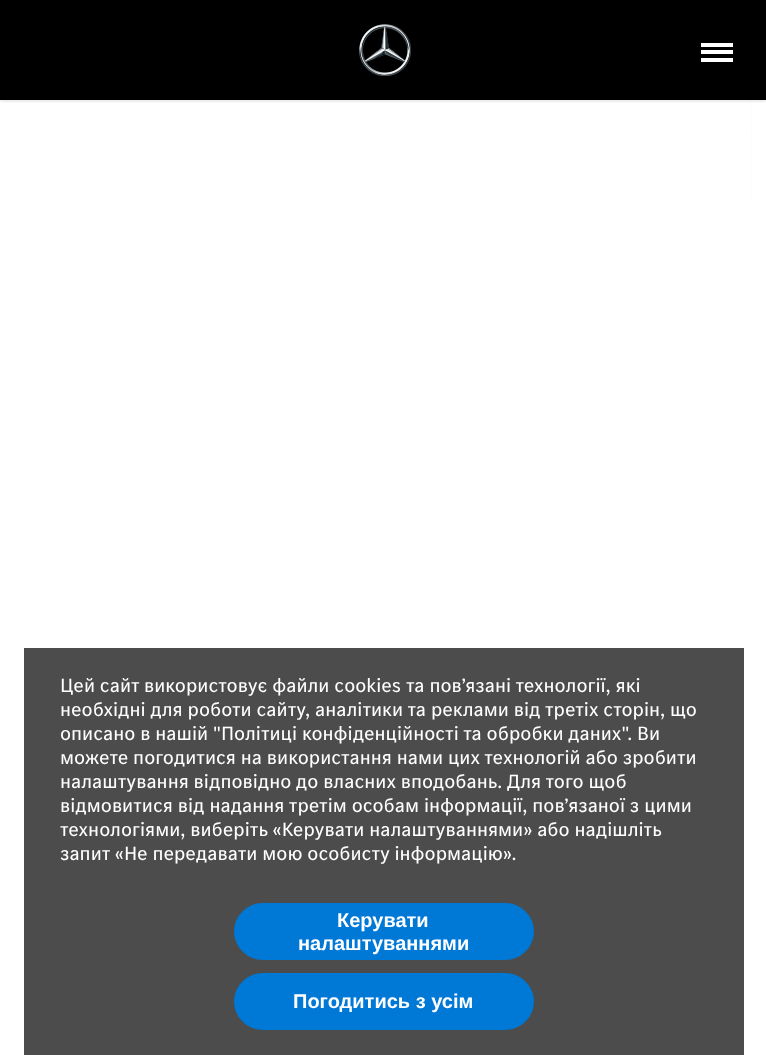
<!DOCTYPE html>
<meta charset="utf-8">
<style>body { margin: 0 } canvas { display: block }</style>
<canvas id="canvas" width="766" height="1055"></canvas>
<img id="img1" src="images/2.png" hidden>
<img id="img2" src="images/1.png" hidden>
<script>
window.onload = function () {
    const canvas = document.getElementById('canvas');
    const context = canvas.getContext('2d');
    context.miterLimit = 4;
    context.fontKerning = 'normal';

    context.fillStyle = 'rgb(255, 255, 255)';
    context.fillRect(0, 0, 766, 1055);
    context.fillStyle = 'rgb(0, 0, 0)';
    context.fillRect(0, 0, 766, 100);
    context.drawImage(document.getElementById('img1'), 751, 100, 1, 934);
    context.save();
    context.beginPath();
    context.rect(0, 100, 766, 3);
    context.clip();
    context.fillStyle = 'rgba(0, 0, 0, 0.2)';
    context.filter = 'blur(2px)';
    context.beginPath();
    context.rect(0, 0, 766, 100);
    context.fill();
    context.filter = 'none';
    context.restore();
    context.drawImage(document.getElementById('img2'), 359, 24, 52, 52);
    context.fillStyle = 'rgb(255, 255, 255)';
    context.fillRect(701, 58, 32, 4);
    context.fillRect(701, 43, 32, 4);
    context.fillRect(701, 50, 32, 4);
    context.fillStyle = 'rgb(75, 76, 75)';
    context.fillRect(24, 648, 720, 407);
    context.fillStyle = 'rgb(0, 120, 214)';
    context.beginPath();
    context.roundRect(234.5, 903.5, 299, 56, 28);
    context.fill();
    context.strokeStyle = 'rgb(0, 120, 214)';
    context.stroke();
    context.beginPath();
    context.roundRect(234.5, 973.5, 299, 56, 28);
    context.fill();
    context.stroke();
    context.font = '20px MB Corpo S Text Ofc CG';
    context.fillStyle = 'rgb(255, 255, 255)';
    context.fillText('Цей сайт використовує файли cookies та пов’язані технології, які', 60, 692);
    context.fillText('необхідні для роботи сайту, аналітики та реклами від третіх сторін, що', 60, 716);
    context.fillText('описано в нашій "Політиці конфіденційності та обробки даних". Ви', 60, 740);
    context.fillText('можете погодитися на використання нами цих технологій або зробити', 60, 764);
    context.fillText('налаштування відповідно до власних вподобань. Для того щоб', 60, 788);
    context.fillText('відмовитися від надання третім особам інформації, пов’язаної з цими', 60, 812);
    context.fillText('технологіями, виберіть «Керувати налаштуваннями» або надішліть', 60, 836);
    context.fillText('запит «Не передавати мою особисту інформацію».', 60, 860);
    context.font = 'bold 20px Liberation Sans';
    context.fillText('Керувати', 337, 927);
    context.fillText('налаштуваннями', 298, 950);
    context.fillText('Погодитись з усім', 293, 1008);
};
</script>
